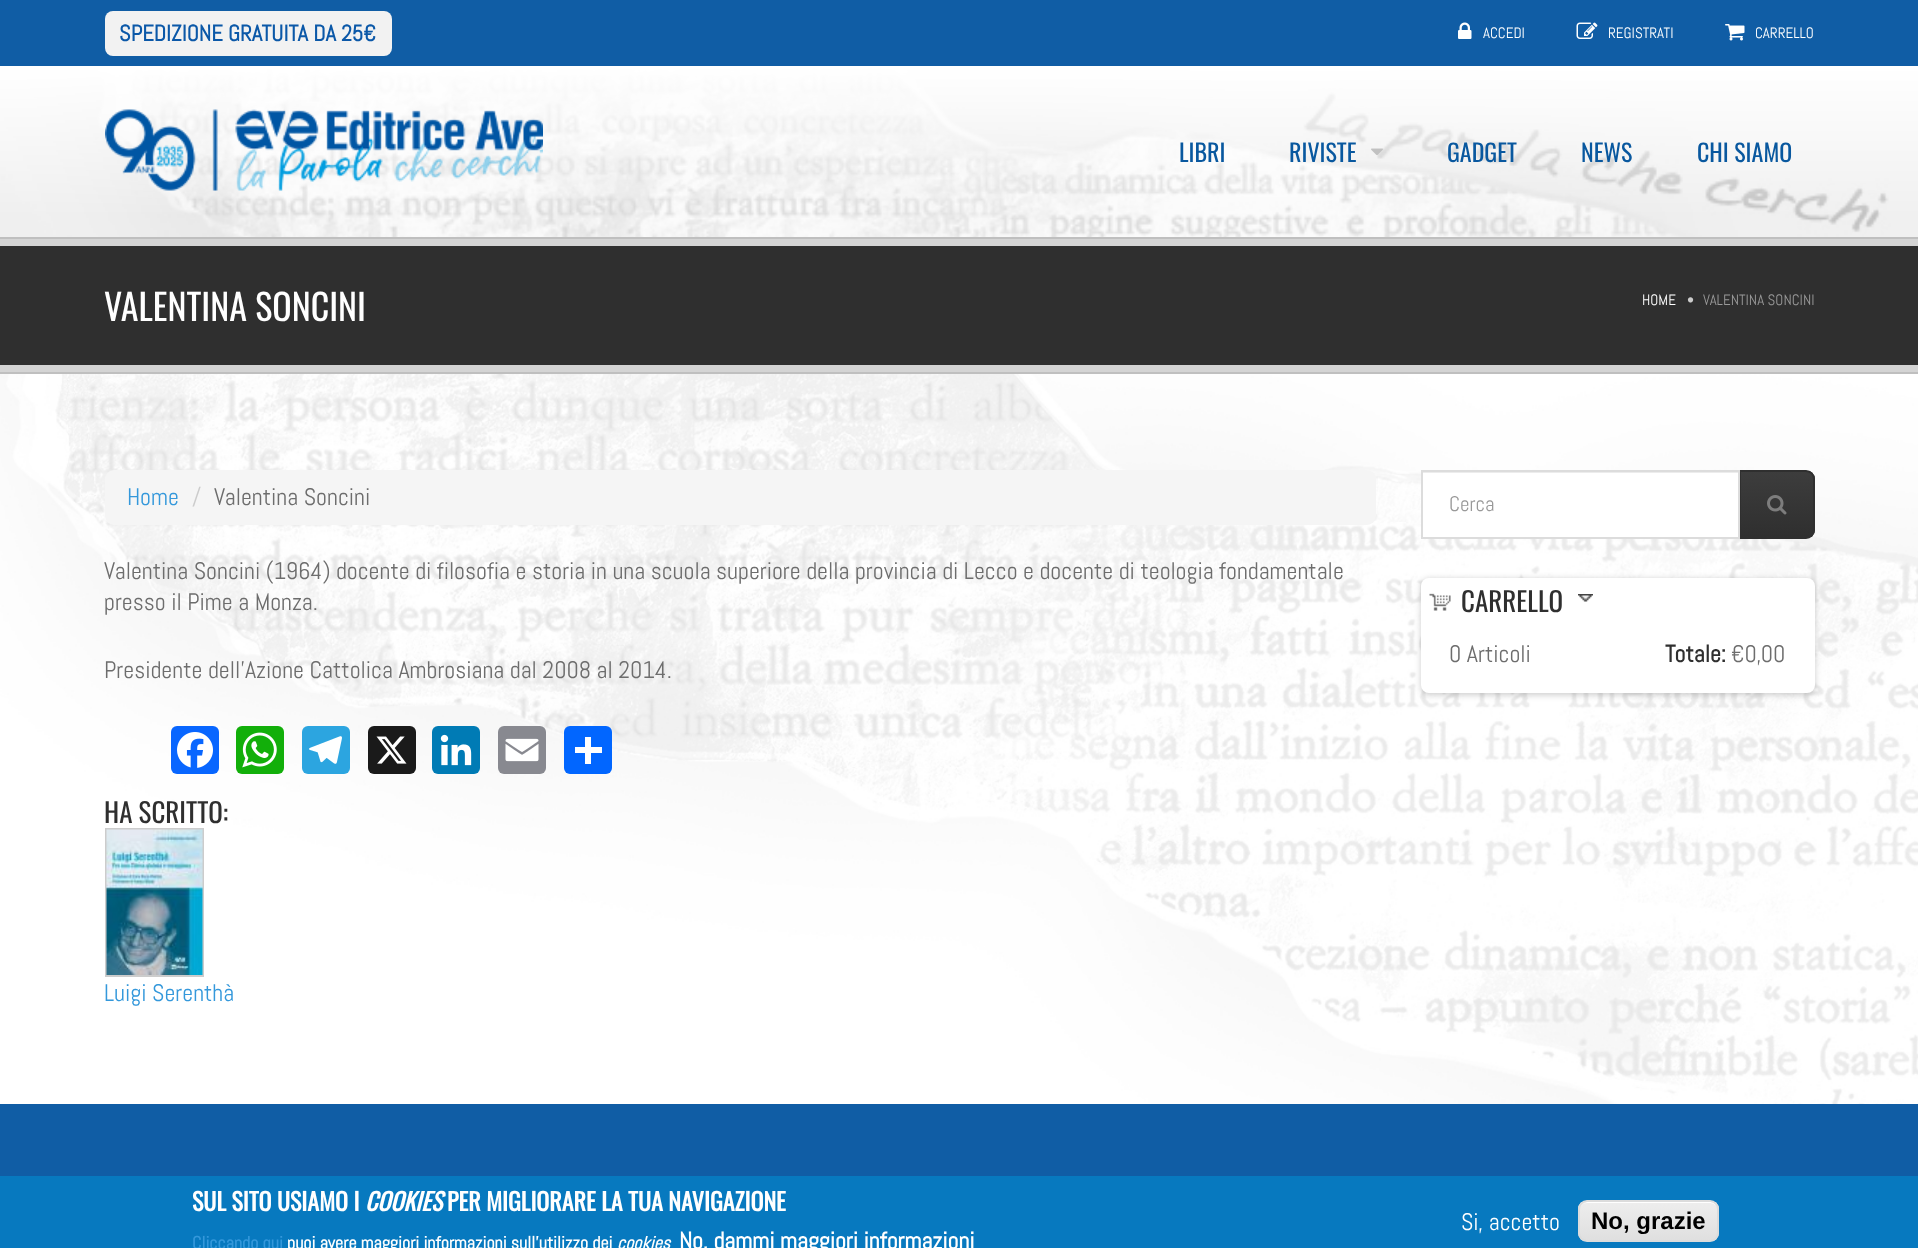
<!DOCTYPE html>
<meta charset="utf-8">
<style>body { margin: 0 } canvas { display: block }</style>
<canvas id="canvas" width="1918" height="1248"></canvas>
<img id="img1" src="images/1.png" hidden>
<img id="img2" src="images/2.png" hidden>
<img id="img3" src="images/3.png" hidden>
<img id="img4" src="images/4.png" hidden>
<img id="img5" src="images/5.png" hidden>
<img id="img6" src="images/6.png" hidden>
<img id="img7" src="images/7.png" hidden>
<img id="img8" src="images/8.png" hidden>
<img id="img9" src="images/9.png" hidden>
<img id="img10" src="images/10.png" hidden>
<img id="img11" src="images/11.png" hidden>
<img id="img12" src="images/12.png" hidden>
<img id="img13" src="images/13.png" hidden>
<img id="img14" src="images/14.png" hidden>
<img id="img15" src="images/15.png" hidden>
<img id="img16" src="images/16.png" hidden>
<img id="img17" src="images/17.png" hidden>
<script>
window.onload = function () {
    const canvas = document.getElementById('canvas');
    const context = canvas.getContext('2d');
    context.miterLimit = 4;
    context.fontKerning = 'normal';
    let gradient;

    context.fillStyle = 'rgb(255, 255, 255)';
    context.fillRect(0, 0, 1918, 1248);
    context.fillStyle = 'rgb(16, 93, 165)';
    context.fillRect(0, 0, 1918, 66);
    context.fillStyle = 'rgb(242, 242, 242)';
    context.beginPath();
    context.roundRect(105, 11, 287, 45, 8);
    context.fill();
    context.drawImage(document.getElementById('img1'), 1458, 22, 14, 17);
    context.drawImage(document.getElementById('img2'), 1576, 22, 22, 17);
    context.drawImage(document.getElementById('img3'), 1725, 24, 20, 17);
    context.drawImage(document.getElementById('img4'), 0, 66, 1918, 171);
    context.drawImage(document.getElementById('img5'), 105, 109, 438, 82);
    context.drawImage(document.getElementById('img6'), 1371, 148, 12, 7);
    context.drawImage(document.getElementById('img7'), 0, 374, 1918, 730);
    context.fillStyle = 'rgb(47, 47, 47)';
    context.fillRect(0, 246, 1918, 119);
    context.fillStyle = 'rgb(212, 212, 212)';
    context.fillRect(0, 239, 1918, 7);
    context.fillRect(0, 365, 1918, 7);
    context.fillStyle = 'rgb(191, 191, 191)';
    context.fillRect(0, 237, 1918, 2);
    context.fillRect(0, 372, 1918, 2);
    context.fillStyle = 'rgb(245, 245, 245)';
    context.beginPath();
    context.roundRect(105, 470, 1271, 55, 9);
    context.fill();
    context.fillStyle = 'rgb(255, 255, 255)';
    context.fillRect(1423, 473, 315, 64);
    context.fillStyle = 'rgb(236, 236, 236)';
    context.fillRect(1422, 472, 317, 1);
    context.save();
    context.beginPath();
    context.roundRect(1739, 470, 76, 69, [0, 9, 9, 0]);
    context.clip();
    gradient = context.createLinearGradient(1777, 471, 1777, 537);
    gradient.addColorStop(0, 'rgb(61, 61, 61)');
    gradient.addColorStop(1, 'rgb(47, 47, 47)');
    context.fillStyle = gradient;
    context.fillRect(1741, 471, 74, 66);
    context.restore();
    context.beginPath();
    context.roundRect(1740, 471, 74, 67, [0, 8, 8, 0]);
    context.strokeStyle = 'rgb(47, 47, 47)';
    context.lineWidth = 2;
    context.stroke();
    context.strokeStyle = 'rgb(220, 220, 220)';
    context.strokeRect(1422, 471, 317, 67);
    context.drawImage(document.getElementById('img8'), 1767, 495, 20, 20);
    context.fillStyle = 'rgb(8, 102, 255)';
    context.beginPath();
    context.roundRect(171, 726, 48, 48, 6);
    context.fill();
    context.drawImage(document.getElementById('img9'), 177, 732, 36, 36);
    context.fillStyle = 'rgb(18, 175, 10)';
    context.beginPath();
    context.roundRect(236, 726, 48, 48, 6);
    context.fill();
    context.drawImage(document.getElementById('img10'), 242, 732, 35, 36);
    context.fillStyle = 'rgb(44, 165, 224)';
    context.beginPath();
    context.roundRect(302, 726, 48, 48, 6);
    context.fill();
    context.drawImage(document.getElementById('img11'), 309, 736, 33, 28);
    context.fillStyle = 'rgb(26, 26, 26)';
    context.beginPath();
    context.roundRect(368, 726, 48, 48, 6);
    context.fill();
    context.drawImage(document.getElementById('img12'), 376, 736, 31, 28);
    context.fillStyle = 'rgb(0, 123, 181)';
    context.beginPath();
    context.roundRect(432, 726, 48, 48, 6);
    context.fill();
    context.drawImage(document.getElementById('img13'), 440, 734, 32, 32);
    context.fillStyle = 'rgb(136, 137, 144)';
    context.beginPath();
    context.roundRect(498, 726, 48, 48, 6);
    context.fill();
    context.drawImage(document.getElementById('img14'), 505, 738, 34, 24);
    context.fillStyle = 'rgb(1, 102, 255)';
    context.beginPath();
    context.roundRect(564, 726, 48, 48, 6);
    context.fill();
    context.fillStyle = 'rgb(255, 255, 255)';
    context.fillRect(585, 737, 6, 27);
    context.fillRect(575, 747, 27, 6);
    context.strokeStyle = 'rgb(204, 204, 204)';
    context.strokeRect(106, 829, 97, 147);
    context.drawImage(document.getElementById('img15'), 106, 829, 97, 146);
    context.fillStyle = 'rgba(0, 0, 0, 0.2)';
    context.filter = 'blur(3px)';
    context.beginPath();
    context.roundRect(1421, 579, 394, 116, 8);
    context.fill();
    context.filter = 'none';
    context.fillStyle = 'rgb(255, 255, 255)';
    context.beginPath();
    context.roundRect(1421, 578, 394, 115, 8);
    context.fill();
    context.drawImage(document.getElementById('img16'), 1429, 593, 22, 18);
    context.drawImage(document.getElementById('img17'), 1578, 594, 15, 8);
    context.fillStyle = 'rgb(16, 93, 165)';
    context.fillRect(0, 1104, 1918, 72);
    context.fillStyle = 'rgb(7, 121, 191)';
    context.fillRect(0, 1176, 1918, 72);
    context.save();
    context.beginPath();
    context.roundRect(1578, 1200, 141, 42, 9);
    context.clip();
    gradient = context.createLinearGradient(1649, 1202, 1649, 1241);
    gradient.addColorStop(0.05, 'rgb(237, 237, 237)');
    gradient.addColorStop(1, 'rgb(223, 223, 223)');
    context.fillStyle = gradient;
    context.fillRect(1578, 1202, 141, 39);
    context.restore();
    context.fillStyle = 'rgb(255, 255, 255)';
    context.beginPath();
    context.moveTo(1587, 1203);
    context.lineTo(1710, 1203);
    context.bezierCurveTo(1714, 1203, 1718, 1206, 1718, 1210);
    context.bezierCurveTo(1718, 1206, 1714, 1202, 1710, 1202);
    context.lineTo(1588, 1202);
    context.bezierCurveTo(1584, 1202, 1580, 1206, 1580, 1210);
    context.bezierCurveTo(1580, 1206, 1583, 1203, 1587, 1203);
    context.closePath();
    context.fill();
    context.beginPath();
    context.roundRect(1579, 1201, 139, 40, 8);
    context.strokeStyle = 'rgb(220, 220, 220)';
    context.stroke();
    context.font = 'bold 22.5px Abel';
    context.fillStyle = 'rgb(11, 88, 168)';
    context.fillText('SPEDIZIONE GRATUITA DA 25€', 119, 41);
    context.font = '15px Abel';
    context.fillStyle = 'rgb(255, 255, 255)';
    context.fillText('ACCEDI', 1483, 38);
    context.fillText('REGISTRATI', 1608, 38);
    context.fillText('CARRELLO', 1755, 38);
    context.font = '24px Oswald';
    context.fillStyle = 'rgb(9, 88, 159)';
    context.fillText('LIBRI', 1179, 162);
    context.fillText('RIVISTE', 1289, 162);
    context.fillText('GADGET', 1447, 162);
    context.fillText('NEWS', 1581, 162);
    context.fillText('CHI SIAMO', 1697, 162);
    context.font = '36px Oswald';
    context.fillStyle = 'rgb(255, 255, 255)';
    context.fillText('VALENTINA SONCINI', 104, 321);
    context.font = '15px Abel';
    context.fillText('HOME', 1642, 305);
    context.fillStyle = 'rgb(204, 204, 204)';
    context.fillText('•', 1687, 305);
    context.fillStyle = 'rgb(153, 153, 153)';
    context.fillText('VALENTINA SONCINI', 1703, 305);
    context.font = '24px Abel';
    context.fillStyle = 'rgb(52, 152, 219)';
    context.fillText('Home', 127, 505);
    context.fillStyle = 'rgb(204, 204, 204)';
    context.fillText('/', 192, 505);
    context.fillStyle = 'rgb(109, 109, 109)';
    context.fillText('Valentina Soncini', 214, 505);
    context.font = '21px Abel';
    context.fillStyle = 'rgb(153, 153, 153)';
    context.fillText('Cerca', 1449, 511);
    context.font = '24px Abel';
    context.fillStyle = 'rgb(109, 109, 109)';
    context.fillText('Valentina Soncini (1964) docente di filosofia e storia in una scuola superiore della provincia di Lecco e docente di teologia fondamentale', 104, 579);
    context.fillText('presso il Pime a Monza.', 104, 610);
    context.fillText('Presidente dell\'Azione Cattolica Ambrosiana dal 2008 al 2014.', 104, 678);
    context.font = '27px Oswald';
    context.fillStyle = 'rgb(47, 47, 47)';
    context.fillText('HA SCRITTO:', 104, 823);
    context.font = '24px Abel';
    context.fillStyle = 'rgb(52, 152, 219)';
    context.fillText('Luigi Serenthà', 104, 1001);
    context.font = '27px Oswald';
    context.fillStyle = 'rgb(47, 47, 47)';
    context.fillText('CARRELLO', 1461, 612);
    context.font = '24px Abel';
    context.fillStyle = 'rgb(109, 109, 109)';
    context.fillText('0 Articoli', 1449, 662);
    context.font = 'bold 24px Abel';
    context.fillStyle = 'rgb(47, 47, 47)';
    context.fillText('Totale:', 1665, 662);
    context.font = '24px Abel';
    context.fillStyle = 'rgb(109, 109, 109)';
    context.fillText('€0,00', 1731, 662);
    context.font = 'bold 24px Oswald';
    context.fillStyle = 'rgb(255, 255, 255)';
    context.fillText('SUL SITO USIAMO I', 192, 1211);
    context.font = 'italic bold 24px Oswald';
    context.fillText('COOKIES', 365, 1211);
    context.font = 'bold 24px Oswald';
    context.fillText('PER MIGLIORARE LA TUA NAVIGAZIONE', 447, 1211);
    context.font = 'bold 18px Abel';
    context.fillStyle = 'rgb(52, 152, 219)';
    context.fillText('Cliccando qui', 192, 1249);
    context.fillStyle = 'rgb(255, 255, 255)';
    context.fillText('puoi avere maggiori informazioni sull\'utilizzo dei', 287, 1249);
    context.font = 'italic bold 18px Abel';
    context.fillText('cookies', 617, 1249);
    context.font = 'bold 24px Abel';
    context.fillText('No, dammi maggiori informazioni', 679, 1249);
    context.font = '24px Abel';
    context.fillText('Si, accetto', 1461, 1230);
    context.font = 'bold 24px Liberation Sans';
    context.fillStyle = 'rgb(0, 0, 0)';
    context.fillText('No, grazie', 1591, 1229);
};
</script>
